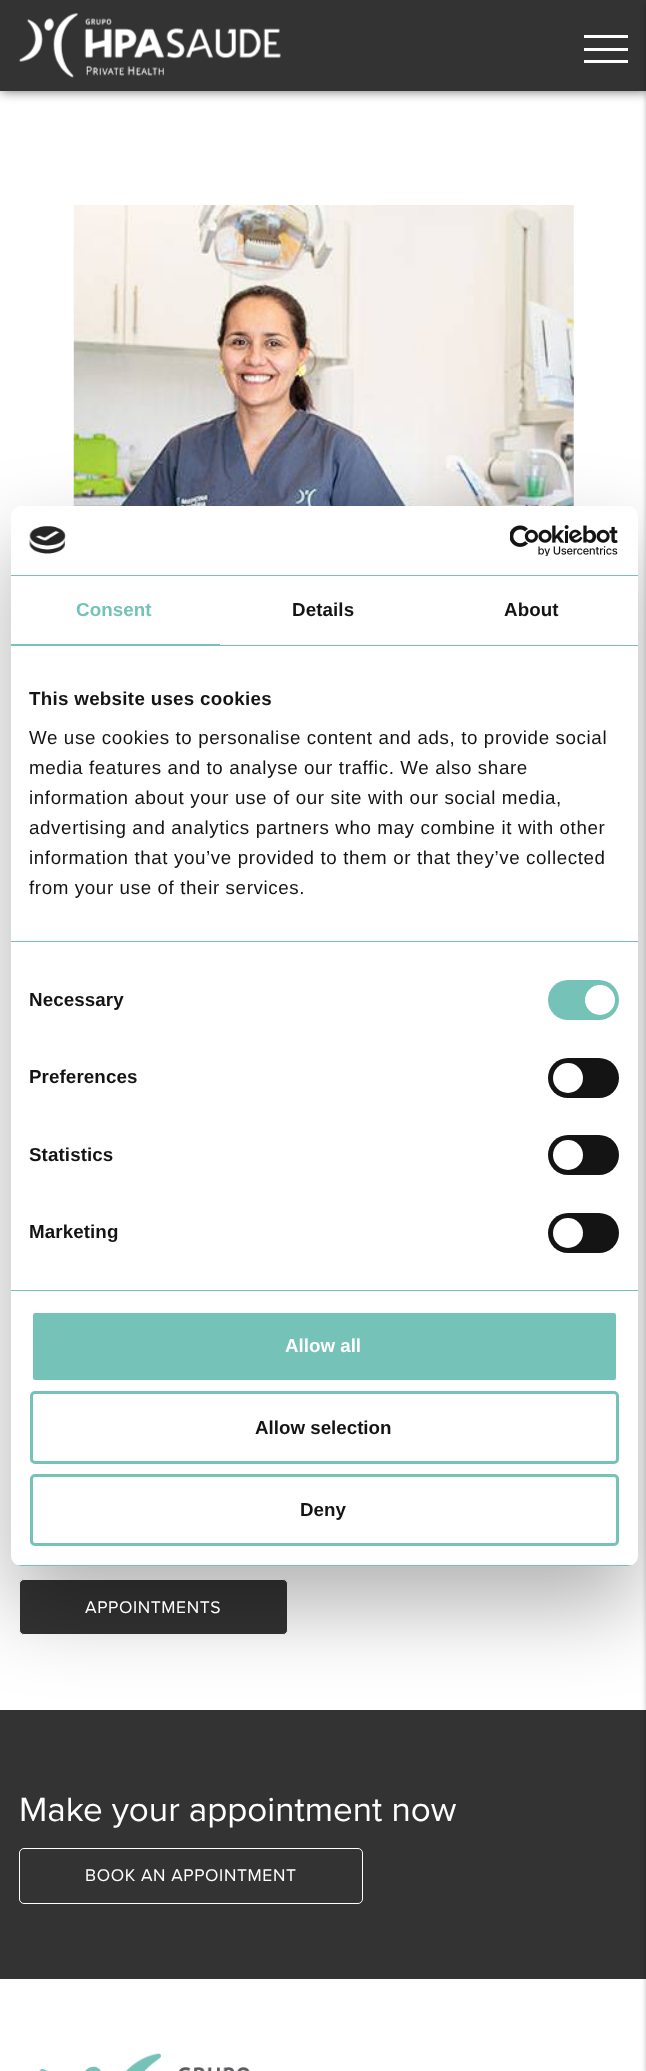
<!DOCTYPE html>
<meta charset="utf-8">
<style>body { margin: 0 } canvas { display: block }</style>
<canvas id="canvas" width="646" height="2071"></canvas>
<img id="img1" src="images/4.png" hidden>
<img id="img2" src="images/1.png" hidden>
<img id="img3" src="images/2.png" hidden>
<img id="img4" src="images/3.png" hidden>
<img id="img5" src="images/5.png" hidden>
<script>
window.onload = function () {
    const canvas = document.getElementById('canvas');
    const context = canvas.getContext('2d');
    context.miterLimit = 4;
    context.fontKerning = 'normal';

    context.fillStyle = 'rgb(255, 255, 255)';
    context.fillRect(0, 0, 646, 2071);
    context.drawImage(document.getElementById('img1'), 73, 205, 501, 301);
    context.fillStyle = 'rgb(51, 51, 51)';
    context.beginPath();
    context.roundRect(19.5, 1579.5, 268, 55, 4.5);
    context.fill();
    context.strokeStyle = 'rgb(255, 255, 255)';
    context.stroke();
    context.fillRect(0, 1710, 646, 269);
    context.fillStyle = 'rgba(0, 0, 0, 0.3)';
    context.filter = 'blur(42.5px)';
    context.beginPath();
    context.roundRect(11, 546, 627, 1060, 10);
    context.fill();
    context.filter = 'none';
    context.fillStyle = 'rgb(102, 102, 102)';
    context.filter = 'blur(6px)';
    context.beginPath();
    context.rect(1, 0, 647, 91);
    context.fill();
    context.filter = 'none';
    context.fillStyle = 'rgb(51, 51, 51)';
    context.fillRect(0, 0, 646, 91);
    context.fillStyle = 'rgba(0, 0, 0, 0.25)';
    context.filter = 'blur(2.5px)';
    context.beginPath();
    context.rect(646, 3, 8, 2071);
    context.fill();
    context.filter = 'none';
    context.fillStyle = 'rgb(255, 255, 255)';
    context.beginPath();
    context.roundRect(11, 506, 627, 1060, 10);
    context.fill();
    context.fillStyle = 'rgb(117, 194, 184)';
    context.fillRect(11, 575, 627, 1);
    context.drawImage(document.getElementById('img2'), 29, 526, 37, 28);
    context.drawImage(document.getElementById('img3'), 510, 525, 108, 31);
    context.fillRect(11, 645, 627, 1);
    context.fillRect(11, 644, 209, 1);
    context.fillRect(11, 941, 627, 1);
    context.fillRect(11, 1290, 627, 1);
    context.beginPath();
    context.roundRect(548, 980, 71, 40, 20);
    context.fill();
    context.fillStyle = 'rgb(255, 255, 255)';
    context.beginPath();
    context.arc(600, 1000, 15, 0, 2 * Math.PI);
    context.fill();
    context.fillStyle = 'rgb(20, 20, 20)';
    context.beginPath();
    context.roundRect(548, 1058, 71, 40, 20);
    context.fill();
    context.fillStyle = 'rgb(255, 255, 255)';
    context.beginPath();
    context.arc(568, 1078, 15, 0, 2 * Math.PI);
    context.fill();
    context.fillStyle = 'rgb(20, 20, 20)';
    context.beginPath();
    context.roundRect(548, 1135, 71, 40, 20);
    context.fill();
    context.fillStyle = 'rgb(255, 255, 255)';
    context.beginPath();
    context.arc(568, 1155, 15, 0, 2 * Math.PI);
    context.fill();
    context.fillStyle = 'rgb(20, 20, 20)';
    context.beginPath();
    context.roundRect(548, 1213, 71, 40, 20);
    context.fill();
    context.fillStyle = 'rgb(255, 255, 255)';
    context.beginPath();
    context.arc(568, 1233, 15, 0, 2 * Math.PI);
    context.fill();
    context.save();
    context.beginPath();
    context.roundRect(11, 506, 627, 1060, 10);
    context.clip();
    context.fillStyle = 'rgb(117, 194, 184)';
    context.fillRect(11, 1565, 627, 1);
    context.restore();
    context.fillStyle = 'rgb(117, 194, 184)';
    context.beginPath();
    context.roundRect(31.5, 1311.5, 586, 70, 3.5);
    context.fill();
    context.lineWidth = 3;
    context.stroke();
    context.beginPath();
    context.roundRect(31.5, 1392.5, 586, 70, 3.5);
    context.strokeStyle = 'rgb(117, 194, 184)';
    context.stroke();
    context.beginPath();
    context.roundRect(31.5, 1475.5, 586, 69, 3.5);
    context.stroke();
    context.drawImage(document.getElementById('img4'), 19, 13, 262, 65);
    context.fillStyle = 'rgb(255, 255, 255)';
    context.fillRect(584, 48, 44, 3);
    context.fillRect(584, 35, 44, 3);
    context.fillRect(584, 60, 44, 3);
    context.beginPath();
    context.roundRect(19.5, 1848.5, 343, 55, 4.5);
    context.strokeStyle = 'rgb(255, 255, 255)';
    context.lineWidth = 1;
    context.stroke();
    context.drawImage(document.getElementById('img5'), 39, 2053, 211, 18);
    context.letterSpacing = '0.1px';
    context.font = 'bold 18.75px Liberation Sans';
    context.fillStyle = 'rgb(117, 194, 184)';
    context.fillText('Consent', 76, 616);
    context.fillStyle = 'rgb(20, 20, 20)';
    context.fillText('Details', 292, 616);
    context.fillText('About', 504, 616);
    context.letterSpacing = '0.3px';
    context.fillText('This website uses cookies', 29, 705);
    context.letterSpacing = '0.62px';
    context.font = '18.75px Liberation Sans';
    context.fillText('We use cookies to personalise content and ads, to provide social', 29, 744);
    context.fillText('media features and to analyse our traffic. We also share', 29, 774);
    context.fillText('information about your use of our site with our social media,', 29, 804);
    context.fillText('advertising and analytics partners who may combine it with other', 29, 834);
    context.fillText('information that you’ve provided to them or that they’ve collected', 29, 864);
    context.fillText('from your use of their services.', 29, 894);
    context.letterSpacing = '0.1px';
    context.font = 'bold 18.75px Liberation Sans';
    context.fillText('Necessary', 29, 1006);
    context.fillText('Preferences', 29, 1083);
    context.fillText('Statistics', 29, 1161);
    context.fillText('Marketing', 29, 1238);
    context.letterSpacing = '0px';
    context.fillStyle = 'rgb(255, 255, 255)';
    context.fillText('Allow all', 285, 1352);
    context.fillStyle = 'rgb(20, 20, 20)';
    context.fillText('Allow selection', 255, 1434);
    context.fillText('Deny', 300, 1516);
    context.letterSpacing = '0.62px';
    context.font = '17.5px Proxima Nova';
    context.fillStyle = 'rgb(255, 255, 255)';
    context.fillText('APPOINTMENTS', 85, 1613);
    context.letterSpacing = '0px';
    context.font = '35px Proxima Nova';
    context.fillText('Make your appointment now', 19, 1821);
    context.letterSpacing = '0.62px';
    context.font = '17.5px Proxima Nova';
    context.fillText('BOOK AN APPOINTMENT', 85, 1881);
};
</script>
